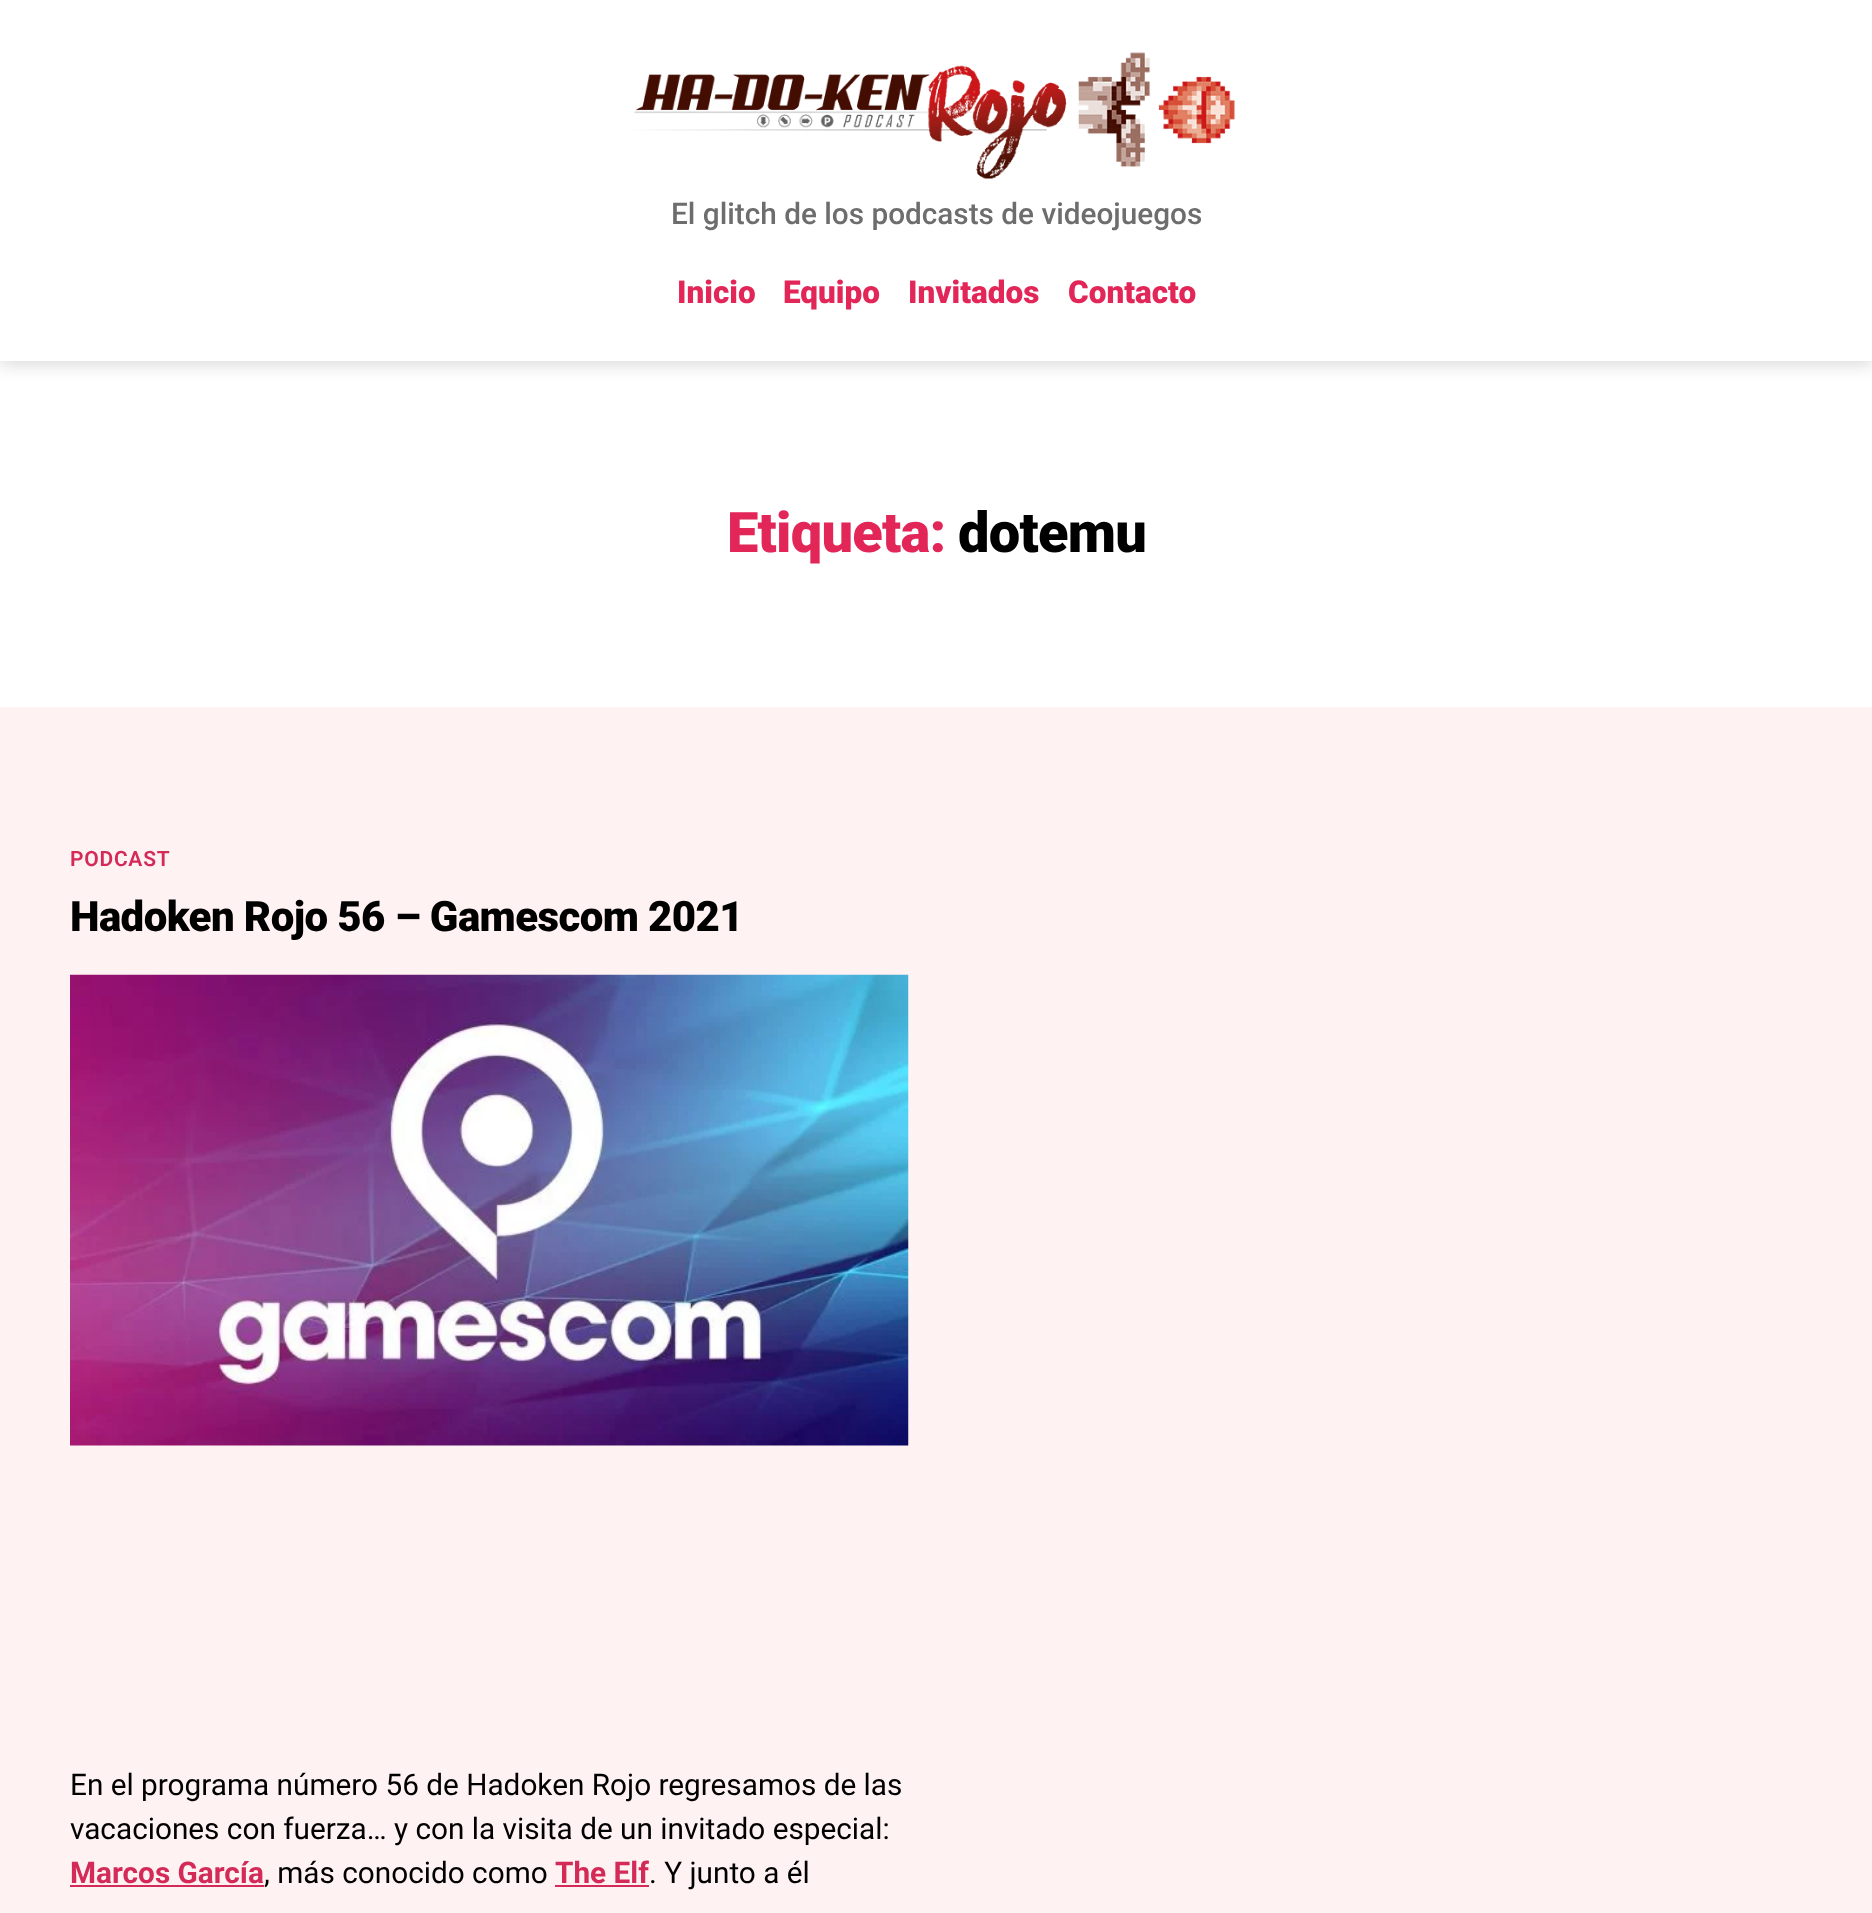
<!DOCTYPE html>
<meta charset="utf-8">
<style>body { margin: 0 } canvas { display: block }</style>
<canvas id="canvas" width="1872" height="1913"></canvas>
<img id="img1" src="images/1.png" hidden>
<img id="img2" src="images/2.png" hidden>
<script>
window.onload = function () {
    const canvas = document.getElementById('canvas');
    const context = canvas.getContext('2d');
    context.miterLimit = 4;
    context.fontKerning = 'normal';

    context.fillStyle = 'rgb(255, 242, 242)';
    context.fillRect(0, 0, 1872, 1913);
    context.fillStyle = 'rgb(255, 255, 255)';
    context.fillRect(0, 361, 1872, 346);
    context.fillStyle = 'rgba(0, 0, 0, 0.16)';
    context.filter = 'blur(9px)';
    context.beginPath();
    context.rect(0, 4, 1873, 360);
    context.fill();
    context.filter = 'none';
    context.fillStyle = 'rgb(255, 255, 255)';
    context.fillRect(0, 0, 1872, 361);
    context.drawImage(document.getElementById('img1'), 634, 52, 601, 127);
    context.drawImage(document.getElementById('img2'), 70, 974, 839, 472);
    context.fillStyle = 'rgb(212, 42, 87)';
    context.fillRect(70, 1885, 194, 2);
    context.fillRect(555, 1885, 94, 2);
    context.font = '500 29.75px Roboto';
    context.fillStyle = 'rgb(109, 109, 109)';
    context.fillText('El glitch de los podcasts de videojuegos', 671, 224);
    context.font = '900 31.5px Roboto';
    context.fillStyle = 'rgb(226, 38, 88)';
    context.fillText('Inicio', 677, 303);
    context.fillText('Equipo', 783, 303);
    context.fillText('Invitados', 908, 303);
    context.fillText('Contacto', 1068, 303);
    context.letterSpacing = '-0.75px';
    context.font = '900 56px Roboto';
    context.fillText('Etiqueta:', 727, 552);
    context.fillStyle = 'rgb(0, 0, 0)';
    context.fillText('dotemu', 958, 552);
    context.letterSpacing = '0.75px';
    context.font = '600 21px Roboto';
    context.fillStyle = 'rgb(212, 42, 87)';
    context.fillText('PODCAST', 70, 866);
    context.letterSpacing = '-0.6px';
    context.font = '900 42px Roboto';
    context.fillStyle = 'rgb(0, 0, 0)';
    context.fillText('Hadoken Rojo 56 – Gamescom 2021', 70, 931);
    context.letterSpacing = '0px';
    context.font = '29.75px Roboto';
    context.fillText('En el programa número 56 de Hadoken Rojo regresamos de las', 70, 1795);
    context.fillText('vacaciones con fuerza… y con la visita de un invitado especial:', 70, 1839);
    context.font = 'bold 29.75px Roboto';
    context.fillStyle = 'rgb(212, 42, 87)';
    context.fillText('Marcos García', 70, 1883);
    context.font = '29.75px Roboto';
    context.fillStyle = 'rgb(0, 0, 0)';
    context.fillText(', más conocido como', 264, 1883);
    context.font = 'bold 29.75px Roboto';
    context.fillStyle = 'rgb(212, 42, 87)';
    context.fillText('The Elf', 555, 1883);
    context.font = '29.75px Roboto';
    context.fillStyle = 'rgb(0, 0, 0)';
    context.fillText('. Y junto a él', 649, 1883);
};
</script>
